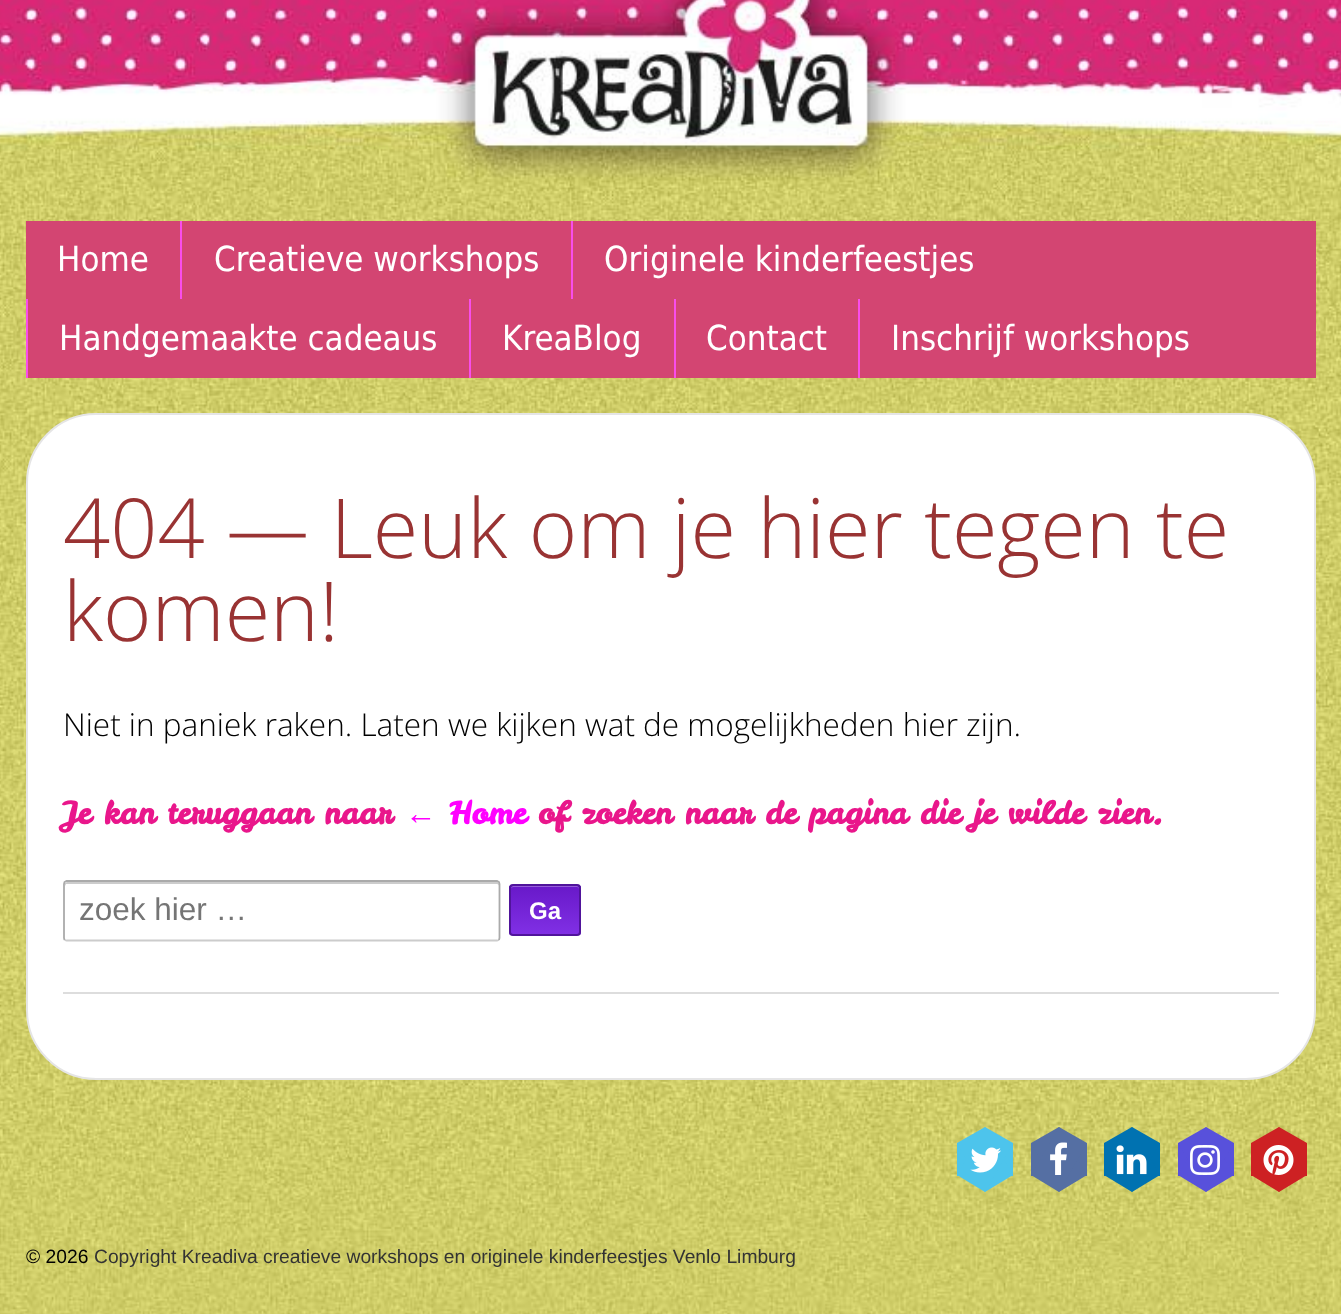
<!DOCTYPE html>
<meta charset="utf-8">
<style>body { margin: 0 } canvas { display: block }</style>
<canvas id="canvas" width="1341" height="1314"></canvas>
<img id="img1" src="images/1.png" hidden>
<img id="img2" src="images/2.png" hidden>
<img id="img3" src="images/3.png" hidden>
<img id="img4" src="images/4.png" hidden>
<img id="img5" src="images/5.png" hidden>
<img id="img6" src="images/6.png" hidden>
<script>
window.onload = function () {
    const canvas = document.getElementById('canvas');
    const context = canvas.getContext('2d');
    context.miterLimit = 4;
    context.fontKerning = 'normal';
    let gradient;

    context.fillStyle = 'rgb(255, 255, 255)';
    context.fillRect(0, 0, 1341, 1314);
    context.drawImage(document.getElementById('img1'), 0, 0, 1341, 1314);
    context.fillStyle = 'rgb(211, 69, 114)';
    context.fillRect(26, 221, 1290, 157);
    context.fillStyle = 'rgb(249, 77, 235)';
    context.fillRect(180, 221, 2, 78);
    context.fillRect(571, 221, 2, 78);
    context.fillRect(26, 299, 2, 79);
    context.fillRect(469, 299, 2, 79);
    context.fillRect(674, 299, 2, 79);
    context.fillRect(858, 299, 2, 79);
    context.fillStyle = 'rgb(255, 255, 255)';
    context.beginPath();
    context.roundRect(27, 414, 1288, 665, 69);
    context.fill();
    context.strokeStyle = 'rgb(229, 229, 229)';
    context.lineWidth = 2;
    context.stroke();
    context.fillStyle = 'rgb(204, 204, 204)';
    context.beginPath();
    context.moveTo(66, 884);
    context.lineTo(497, 884);
    context.bezierCurveTo(498, 884, 499, 885, 499, 886);
    context.bezierCurveTo(499, 884, 499, 882, 497, 882);
    context.lineTo(67, 882);
    context.lineTo(65, 883);
    context.lineTo(65, 886);
    context.closePath();
    context.fill();
    context.beginPath();
    context.moveTo(499, 940);
    context.lineTo(497, 940.5);
    context.lineTo(66.5, 940.5);
    context.lineTo(64.5, 940);
    context.strokeStyle = 'rgb(204, 204, 204)';
    context.lineWidth = 1.8;
    context.stroke();
    context.beginPath();
    context.moveTo(64.5, 940);
    context.lineTo(64, 938);
    context.lineTo(64, 884);
    context.lineTo(64.5, 882);
    context.lineTo(66.5, 881);
    context.lineTo(497, 881);
    context.lineTo(499, 882);
    context.lineTo(499.5, 884);
    context.lineTo(499.5, 938);
    context.lineTo(499, 940);
    context.strokeStyle = 'rgb(170, 170, 170)';
    context.stroke();
    context.save();
    context.beginPath();
    context.roundRect(509, 884, 72, 52, 4);
    context.clip();
    gradient = context.createLinearGradient(545, 935, 545, 886);
    gradient.addColorStop(0, 'rgb(129, 48, 229)');
    gradient.addColorStop(1, 'rgb(104, 25, 201)');
    context.fillStyle = gradient;
    context.fillRect(509, 886, 72, 49);
    context.restore();
    context.fillStyle = 'rgb(149, 94, 217)';
    context.beginPath();
    context.moveTo(513, 887);
    context.lineTo(575, 887);
    context.bezierCurveTo(577, 887, 579, 887, 579, 889);
    context.lineTo(579, 888);
    context.bezierCurveTo(579, 887, 578, 886, 577, 886);
    context.lineTo(513, 886);
    context.bezierCurveTo(512, 886, 511, 887, 511, 888);
    context.closePath();
    context.fill();
    context.beginPath();
    context.roundRect(510, 885, 70, 50, 3);
    context.strokeStyle = 'rgb(80, 20, 155)';
    context.lineWidth = 2;
    context.stroke();
    context.fillStyle = 'rgb(221, 221, 221)';
    context.fillRect(63, 992, 1216, 2);
    context.fillStyle = 'rgb(77, 196, 236)';
    context.fillRect(957, 1143, 56, 33);
    context.beginPath();
    context.moveTo(985, 1127);
    context.lineTo(1013, 1175);
    context.lineTo(985, 1192);
    context.lineTo(957, 1143);
    context.closePath();
    context.fill();
    context.beginPath();
    context.moveTo(957, 1175);
    context.lineTo(985, 1127);
    context.lineTo(1013, 1143);
    context.lineTo(985, 1192);
    context.closePath();
    context.fill();
    context.drawImage(document.getElementById('img2'), 970, 1147, 31, 26);
    context.fillStyle = 'rgb(85, 111, 163)';
    context.fillRect(1031, 1143, 56, 33);
    context.beginPath();
    context.moveTo(1059, 1127);
    context.lineTo(1087, 1175);
    context.lineTo(1059, 1192);
    context.lineTo(1031, 1143);
    context.closePath();
    context.fill();
    context.beginPath();
    context.moveTo(1031, 1175);
    context.lineTo(1059, 1127);
    context.lineTo(1087, 1143);
    context.lineTo(1059, 1192);
    context.closePath();
    context.fill();
    context.drawImage(document.getElementById('img3'), 1050, 1142, 17, 33);
    context.fillStyle = 'rgb(0, 114, 177)';
    context.fillRect(1104, 1143, 56, 33);
    context.beginPath();
    context.moveTo(1132, 1127);
    context.lineTo(1160, 1175);
    context.lineTo(1132, 1192);
    context.lineTo(1104, 1143);
    context.closePath();
    context.fill();
    context.beginPath();
    context.moveTo(1104, 1175);
    context.lineTo(1132, 1127);
    context.lineTo(1160, 1143);
    context.lineTo(1132, 1192);
    context.closePath();
    context.fill();
    context.drawImage(document.getElementById('img4'), 1116, 1145, 31, 30);
    context.fillStyle = 'rgb(88, 81, 219)';
    context.fillRect(1178, 1143, 56, 33);
    context.beginPath();
    context.moveTo(1206, 1127);
    context.lineTo(1234, 1175);
    context.lineTo(1206, 1192);
    context.lineTo(1178, 1143);
    context.closePath();
    context.fill();
    context.beginPath();
    context.moveTo(1178, 1175);
    context.lineTo(1206, 1127);
    context.lineTo(1234, 1143);
    context.lineTo(1206, 1192);
    context.closePath();
    context.fill();
    context.drawImage(document.getElementById('img5'), 1190, 1145, 30, 30);
    context.fillStyle = 'rgb(205, 33, 35)';
    context.fillRect(1251, 1143, 56, 33);
    context.beginPath();
    context.moveTo(1279, 1127);
    context.lineTo(1307, 1175);
    context.lineTo(1279, 1192);
    context.lineTo(1251, 1143);
    context.closePath();
    context.fill();
    context.beginPath();
    context.moveTo(1251, 1175);
    context.lineTo(1279, 1127);
    context.lineTo(1307, 1143);
    context.lineTo(1279, 1192);
    context.closePath();
    context.fill();
    context.drawImage(document.getElementById('img6'), 1263, 1145, 31, 30);
    context.font = '34.6px DejaVu Sans';
    context.fillStyle = 'rgb(255, 255, 255)';
    context.fillText('Home', 57, 271);
    context.fillText('Creatieve workshops', 214, 271);
    context.fillText('Originele kinderfeestjes', 604, 271);
    context.fillText('Handgemaakte cadeaus', 59, 350);
    context.fillText('KreaBlog', 502, 350);
    context.fillText('Contact', 706, 350);
    context.fillText('Inschrijf workshops', 891, 350);
    context.font = '300 82.75px Open Sans';
    context.fillStyle = 'rgb(153, 51, 51)';
    context.fillText('404 — Leuk om je hier tegen te', 63, 558);
    context.fillText('komen!', 63, 641);
    context.font = '300 31.5px Open Sans';
    context.fillStyle = 'rgb(0, 0, 0)';
    context.fillText('Niet in paniek raken. Laten we kijken wat de mogelijkheden hier zijn.', 63, 736);
    context.font = 'bold 31.5px Leckerli One';
    context.fillStyle = 'rgb(233, 22, 139)';
    context.fillText('Je kan teruggaan naar', 63, 824);
    context.font = 'bold 31.5px Liberation Serif';
    context.fillStyle = 'rgb(255, 0, 255)';
    context.fillText('←', 405, 824);
    context.font = 'bold 31.5px Leckerli One';
    context.fillText('Home', 449, 824);
    context.fillStyle = 'rgb(233, 22, 139)';
    context.fillText('of zoeken naar de pagina die je wilde zien.', 538, 824);
    context.font = '31.5px Liberation Sans';
    context.fillStyle = 'rgb(117, 117, 117)';
    context.fillText('zoek hier …', 79, 920);
    context.font = 'bold 24px Liberation Sans';
    context.fillStyle = 'rgb(255, 255, 255)';
    context.fillText('Ga', 529, 919);
    context.font = '19.25px Liberation Sans';
    context.fillStyle = 'rgb(0, 0, 0)';
    context.fillText('© 2026', 26, 1263);
    context.fillStyle = 'rgb(51, 51, 51)';
    context.fillText('Copyright Kreadiva creatieve workshops en originele kinderfeestjes Venlo Limburg', 94, 1263);
};
</script>
